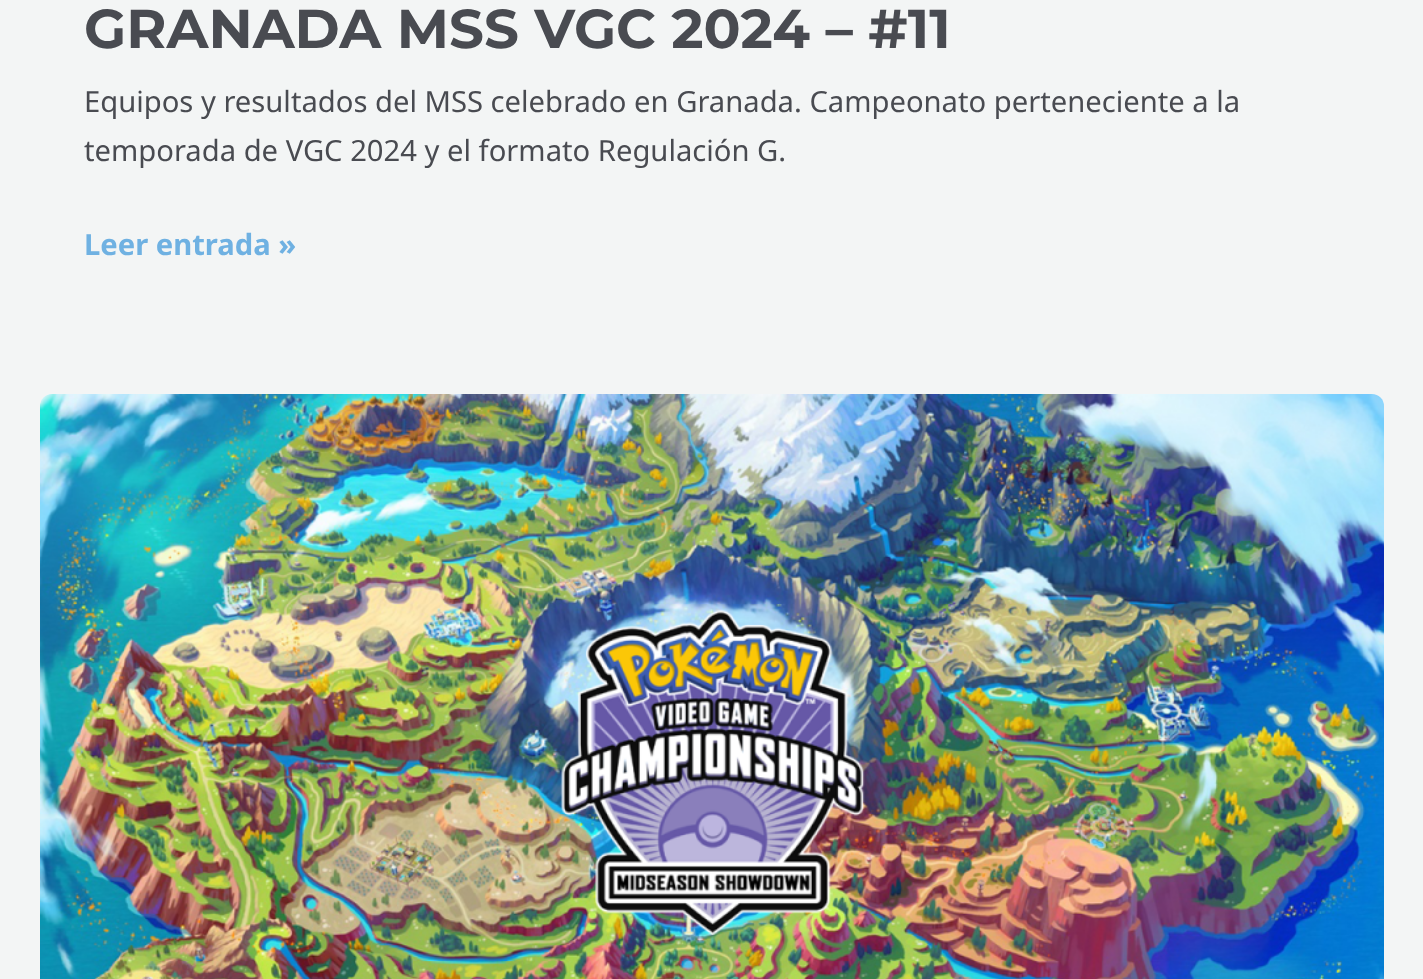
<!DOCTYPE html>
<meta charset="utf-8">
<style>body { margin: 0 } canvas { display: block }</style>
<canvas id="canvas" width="1423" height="979"></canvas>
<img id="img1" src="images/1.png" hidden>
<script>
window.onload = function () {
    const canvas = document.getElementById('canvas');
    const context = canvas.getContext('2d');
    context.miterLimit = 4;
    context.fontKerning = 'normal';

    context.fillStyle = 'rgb(243, 245, 245)';
    context.fillRect(0, 0, 1423, 979);
    context.drawImage(document.getElementById('img1'), 40, 394, 1344, 585);
    context.font = '100 54.75px Montserrat';
    context.fillStyle = 'rgb(73, 75, 81)';
    context.fillText('GRANADA MSS VGC 2024 – #11', 84, 48);
    context.font = '29.2px Noto Sans';
    context.fillText('Equipos y resultados del MSS celebrado en Granada. Campeonato perteneciente a la', 84, 112);
    context.fillText('temporada de VGC 2024 y el formato Regulación G.', 84, 161);
    context.font = 'bold 29.2px Noto Sans';
    context.fillStyle = 'rgb(111, 177, 226)';
    context.fillText('Leer entrada »', 84, 255);
};
</script>
